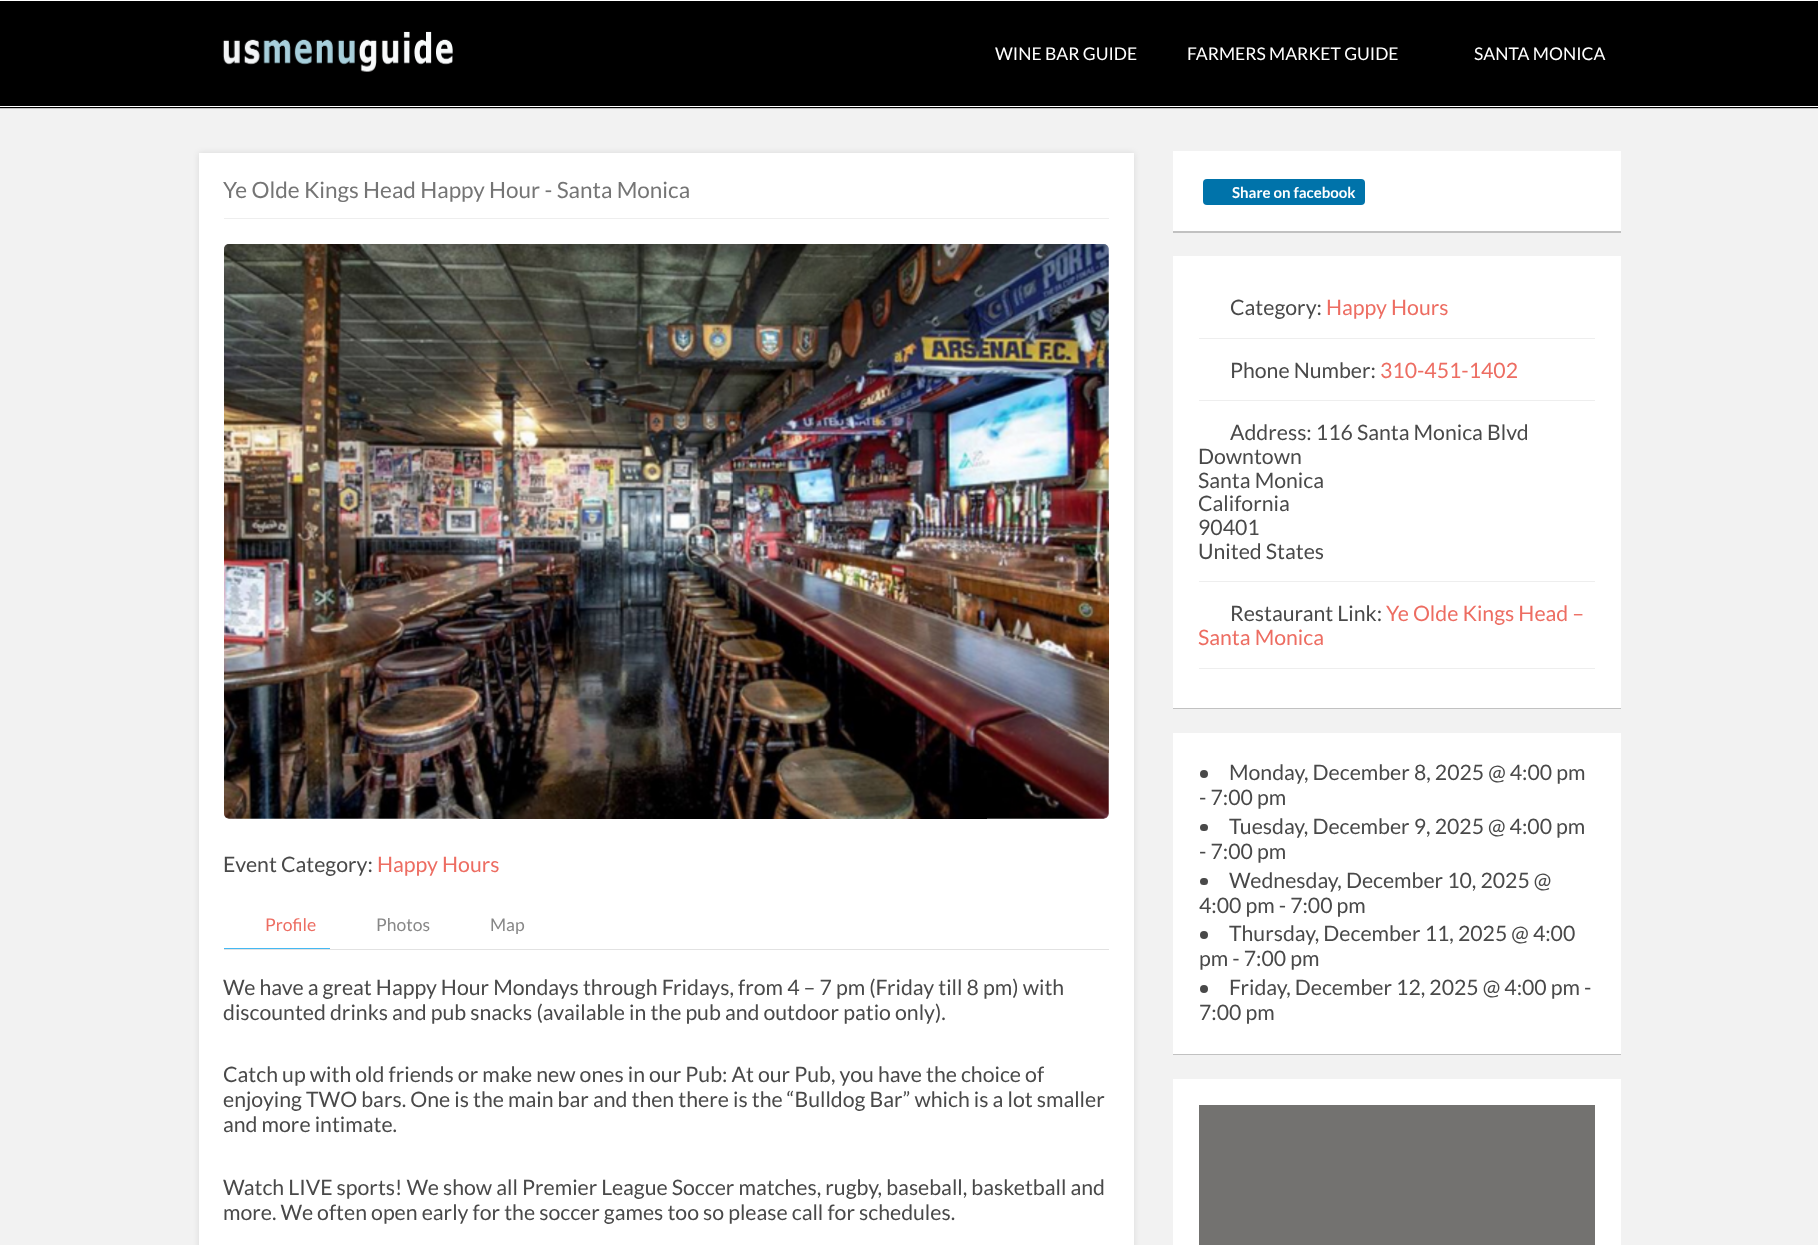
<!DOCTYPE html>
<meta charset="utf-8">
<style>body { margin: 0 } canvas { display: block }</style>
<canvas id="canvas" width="1818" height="1245"></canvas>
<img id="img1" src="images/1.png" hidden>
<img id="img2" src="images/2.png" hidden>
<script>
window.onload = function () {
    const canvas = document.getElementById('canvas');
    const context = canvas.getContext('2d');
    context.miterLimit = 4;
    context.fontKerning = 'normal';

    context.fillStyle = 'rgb(242, 242, 242)';
    context.fillRect(0, 0, 1818, 1245);
    context.fillStyle = 'rgba(0, 0, 0, 0.2)';
    context.filter = 'blur(0.5px)';
    context.beginPath();
    context.rect(0, 1, 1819, 108);
    context.fill();
    context.filter = 'none';
    context.fillStyle = 'rgb(0, 0, 0)';
    context.fillRect(0, 1, 1818, 107);
    context.fillStyle = 'rgb(255, 255, 255)';
    context.fillRect(0, 0, 1818, 1);
    context.fillRect(0, 106, 1818, 1);
    context.drawImage(document.getElementById('img1'), 222, 31, 231, 41);
    context.fillStyle = 'rgba(0, 0, 0, 0.1)';
    context.filter = 'blur(3px)';
    context.beginPath();
    context.rect(199, 153, 935, 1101);
    context.fill();
    context.filter = 'none';
    context.fillStyle = 'rgb(255, 255, 255)';
    context.fillRect(199, 153, 935, 1092);
    context.fillStyle = 'rgb(238, 238, 238)';
    context.fillRect(224, 218, 885, 1);
    context.drawImage(document.getElementById('img2'), 224, 244, 885, 575);
    context.fillStyle = 'rgb(226, 226, 226)';
    context.fillRect(224, 949, 885, 1);
    context.fillStyle = 'rgb(69, 184, 242)';
    context.fillRect(224, 948, 106, 1);
    context.fillStyle = 'rgba(0, 0, 0, 0.2)';
    context.filter = 'blur(0.5px)';
    context.beginPath();
    context.rect(1173, 153, 448, 80);
    context.fill();
    context.filter = 'none';
    context.fillStyle = 'rgb(255, 255, 255)';
    context.fillRect(1173, 151, 448, 80);
    context.fillStyle = 'rgb(0, 115, 170)';
    context.beginPath();
    context.roundRect(1203, 179, 162, 26, 4);
    context.fill();
    context.fillStyle = 'rgba(0, 0, 0, 0.2)';
    context.filter = 'blur(0.5px)';
    context.beginPath();
    context.rect(1173, 258, 448, 451);
    context.fill();
    context.filter = 'none';
    context.fillStyle = 'rgb(255, 255, 255)';
    context.fillRect(1173, 256, 448, 452);
    context.fillStyle = 'rgb(238, 238, 238)';
    context.fillRect(1199, 338, 396, 1);
    context.fillRect(1199, 400, 396, 1);
    context.fillRect(1199, 581, 396, 1);
    context.fillRect(1199, 668, 396, 1);
    context.fillStyle = 'rgba(0, 0, 0, 0.2)';
    context.filter = 'blur(0.5px)';
    context.beginPath();
    context.rect(1173, 734, 448, 321);
    context.fill();
    context.filter = 'none';
    context.fillStyle = 'rgb(255, 255, 255)';
    context.fillRect(1173, 733, 448, 321);
    context.fillStyle = 'rgb(73, 73, 73)';
    context.beginPath();
    context.arc(1204, 774, 4, 0, 2 * Math.PI);
    context.fill();
    context.beginPath();
    context.roundRect(1200, 824, 8, 7, 3.5);
    context.fill();
    context.beginPath();
    context.roundRect(1200, 878, 8, 7, 3.5);
    context.fill();
    context.beginPath();
    context.arc(1204, 935, 4, 0, 2 * Math.PI);
    context.fill();
    context.beginPath();
    context.arc(1204, 989, 4, 0, 2 * Math.PI);
    context.fill();
    context.fillStyle = 'rgb(255, 255, 255)';
    context.fillRect(1173, 1079, 448, 166);
    context.fillStyle = 'rgb(115, 114, 112)';
    context.fillRect(1199, 1105, 396, 140);
    context.font = '17.5px Lato';
    context.fillStyle = 'rgb(255, 255, 255)';
    context.fillText('WINE BAR GUIDE', 995, 60);
    context.fillText('FARMERS MARKET GUIDE', 1187, 60);
    context.fillText('SANTA MONICA', 1474, 60);
    context.font = '22.5px Lato';
    context.fillStyle = 'rgb(117, 117, 117)';
    context.fillText('Ye Olde Kings Head Happy Hour - Santa Monica', 223, 198);
    context.font = '21.25px Lato';
    context.fillStyle = 'rgb(73, 73, 73)';
    context.fillText('Event Category:', 223, 872);
    context.fillStyle = 'rgb(237, 109, 98)';
    context.fillText('Happy Hours', 377, 872);
    context.font = '17.5px Lato';
    context.fillText('Profile', 265, 931);
    context.fillStyle = 'rgb(135, 135, 135)';
    context.fillText('Photos', 376, 931);
    context.fillText('Map', 490, 931);
    context.font = '21.25px Lato';
    context.fillStyle = 'rgb(73, 73, 73)';
    context.fillText('We have a great Happy Hour Mondays through Fridays, from 4 – 7 pm (Friday till 8 pm) with', 223, 995);
    context.fillText('discounted drinks and pub snacks (available in the pub and outdoor patio only).', 223, 1020);
    context.fillText('Catch up with old friends or make new ones in our Pub: At our Pub, you have the choice of', 223, 1082);
    context.fillText('enjoying TWO bars. One is the main bar and then there is the “Bulldog Bar” which is a lot smaller', 223, 1107);
    context.fillText('and more intimate.', 223, 1132);
    context.fillText('Watch LIVE sports! We show all Premier League Soccer matches, rugby, baseball, basketball and', 223, 1195);
    context.fillText('more. We often open early for the soccer games too so please call for schedules.', 223, 1220);
    context.font = 'bold 15px Lato';
    context.fillStyle = 'rgb(255, 255, 255)';
    context.fillText('Share on facebook', 1232, 198);
    context.font = '21.25px Lato';
    context.fillStyle = 'rgb(73, 73, 73)';
    context.fillText('Category:', 1230, 315);
    context.fillStyle = 'rgb(237, 109, 98)';
    context.fillText('Happy Hours', 1326, 315);
    context.fillStyle = 'rgb(73, 73, 73)';
    context.fillText('Phone Number:', 1230, 378);
    context.fillStyle = 'rgb(237, 109, 98)';
    context.fillText('310-451-1402', 1380, 378);
    context.fillStyle = 'rgb(73, 73, 73)';
    context.fillText('Address: 116 Santa Monica Blvd', 1230, 440);
    context.fillText('Downtown', 1198, 464);
    context.fillText('Santa Monica', 1198, 488);
    context.fillText('California', 1198, 511);
    context.fillText('90401', 1198, 535);
    context.fillText('United States', 1198, 559);
    context.fillText('Restaurant Link:', 1230, 621);
    context.fillStyle = 'rgb(237, 109, 98)';
    context.fillText('Ye Olde Kings Head –', 1386, 621);
    context.fillText('Santa Monica', 1198, 645);
    context.fillStyle = 'rgb(73, 73, 73)';
    context.fillText('Monday, December 8, 2025 @ 4:00 pm', 1229, 780);
    context.fillText('- 7:00 pm', 1199, 805);
    context.fillText('Tuesday, December 9, 2025 @ 4:00 pm', 1229, 834);
    context.fillText('- 7:00 pm', 1199, 859);
    context.fillText('Wednesday, December 10, 2025 @', 1229, 888);
    context.fillText('4:00 pm - 7:00 pm', 1199, 913);
    context.fillText('Thursday, December 11, 2025 @ 4:00', 1229, 941);
    context.fillText('pm - 7:00 pm', 1199, 966);
    context.fillText('Friday, December 12, 2025 @ 4:00 pm -', 1229, 995);
    context.fillText('7:00 pm', 1199, 1020);
};
</script>
